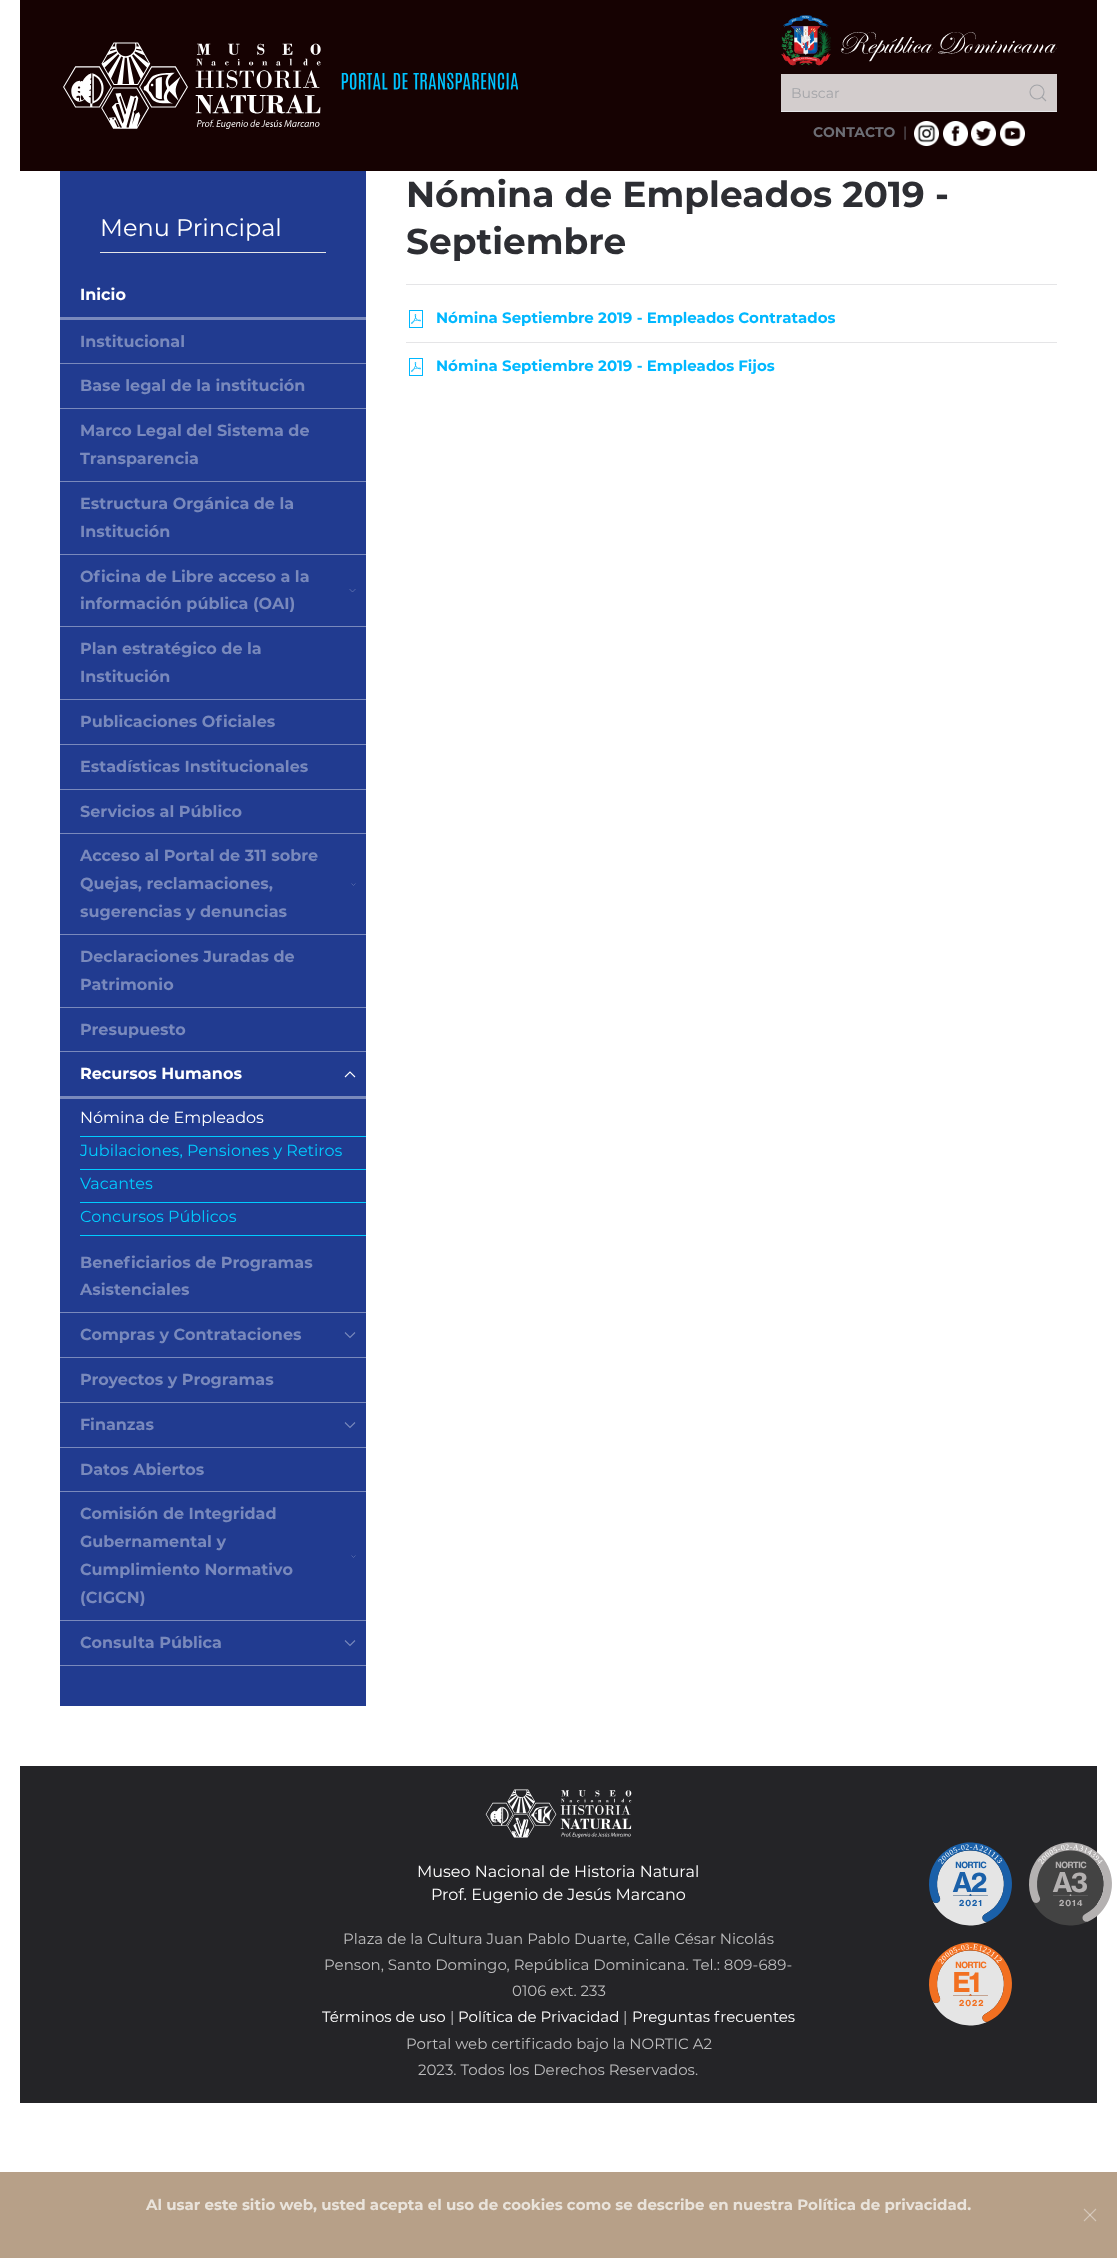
<!DOCTYPE html>
<meta charset="utf-8">
<style>body { margin: 0 } canvas { display: block }</style>
<canvas id="canvas" width="1117" height="2258"></canvas>
<img id="img1" src="images/1.png" hidden>
<img id="img2" src="images/2.png" hidden>
<img id="img3" src="images/3.png" hidden>
<img id="img4" src="images/4.png" hidden>
<img id="img5" src="images/5.png" hidden>
<img id="img6" src="images/6.png" hidden>
<img id="img7" src="images/7.png" hidden>
<img id="img8" src="images/8.png" hidden>
<img id="img9" src="images/9.png" hidden>
<img id="img10" src="images/10.png" hidden>
<img id="img11" src="images/11.png" hidden>
<script>
window.onload = function () {
    const canvas = document.getElementById('canvas');
    const context = canvas.getContext('2d');
    context.miterLimit = 4;
    context.fontKerning = 'normal';

    context.fillStyle = 'rgb(255, 255, 255)';
    context.fillRect(0, 0, 1117, 2258);
    context.fillStyle = 'rgb(22, 2, 2)';
    context.fillRect(20, 0, 1077, 171);
    context.drawImage(document.getElementById('img1'), 63, 42, 456, 87);
    context.drawImage(document.getElementById('img2'), 781, 15, 276, 51);
    context.fillStyle = 'rgb(211, 205, 205)';
    context.fillRect(781, 74, 276, 37);
    context.fillStyle = 'rgb(229, 229, 231)';
    context.fillRect(781, 111, 276, 1);
    context.beginPath();
    context.arc(1037, 92, 7, 0, 2 * Math.PI);
    context.strokeStyle = 'rgb(163, 164, 168)';
    context.lineWidth = 1.1;
    context.stroke();
    context.beginPath();
    context.moveTo(1042, 97);
    context.lineTo(1046, 101);
    context.closePath();
    context.stroke();
    context.drawImage(document.getElementById('img3'), 914, 121, 25, 25);
    context.drawImage(document.getElementById('img4'), 943, 121, 25, 25);
    context.drawImage(document.getElementById('img5'), 971, 121, 25, 25);
    context.drawImage(document.getElementById('img6'), 1000, 121, 25, 25);
    context.fillStyle = 'rgb(33, 59, 144)';
    context.fillRect(60, 171, 306, 1535);
    context.fillStyle = 'rgb(229, 229, 231)';
    context.fillRect(100, 252, 226, 1);
    context.fillStyle = 'rgb(121, 137, 188)';
    context.fillRect(60, 317, 306, 3);
    context.fillRect(60, 363, 306, 1);
    context.fillRect(60, 408, 306, 1);
    context.fillRect(60, 481, 306, 1);
    context.fillRect(60, 554, 306, 1);
    context.fillRect(60, 626, 306, 1);
    context.beginPath();
    context.moveTo(349.5, 589);
    context.lineTo(352.5, 592);
    context.lineTo(355.5, 589);
    context.strokeStyle = 'rgb(121, 137, 188)';
    context.lineWidth = 0.6;
    context.stroke();
    context.fillRect(60, 699, 306, 1);
    context.fillRect(60, 744, 306, 1);
    context.fillRect(60, 789, 306, 1);
    context.fillRect(60, 833, 306, 1);
    context.fillRect(60, 934, 306, 1);
    context.beginPath();
    context.moveTo(351.5, 883.5);
    context.lineTo(353.5, 885.5);
    context.lineTo(355.5, 883.5);
    context.lineWidth = 0.5;
    context.stroke();
    context.fillRect(60, 1007, 306, 1);
    context.fillRect(60, 1051, 306, 1);
    context.fillRect(60, 1096, 306, 3);
    context.beginPath();
    context.moveTo(345, 1077);
    context.lineTo(350, 1072);
    context.lineTo(355, 1077);
    context.strokeStyle = 'rgb(255, 255, 255)';
    context.lineWidth = 1.1;
    context.stroke();
    context.fillStyle = 'rgb(0, 204, 255)';
    context.fillRect(80, 1136, 286, 1);
    context.fillRect(80, 1169, 286, 1);
    context.fillRect(80, 1202, 286, 1);
    context.fillRect(80, 1235, 286, 1);
    context.fillStyle = 'rgb(121, 137, 188)';
    context.fillRect(60, 1312, 306, 1);
    context.fillRect(60, 1357, 306, 1);
    context.beginPath();
    context.moveTo(345, 1332.5);
    context.lineTo(350, 1337.5);
    context.lineTo(355, 1332.5);
    context.strokeStyle = 'rgb(121, 137, 188)';
    context.stroke();
    context.fillRect(60, 1402, 306, 1);
    context.fillRect(60, 1447, 306, 1);
    context.beginPath();
    context.moveTo(345, 1422.5);
    context.lineTo(350, 1427.5);
    context.lineTo(355, 1422.5);
    context.stroke();
    context.fillRect(60, 1491, 306, 1);
    context.fillRect(60, 1620, 306, 1);
    context.beginPath();
    context.moveTo(351.5, 1555.5);
    context.lineTo(353.5, 1557.5);
    context.lineTo(355.5, 1555.5);
    context.lineWidth = 0.5;
    context.stroke();
    context.fillRect(60, 1665, 306, 1);
    context.beginPath();
    context.moveTo(345, 1640.5);
    context.lineTo(350, 1645.5);
    context.lineTo(355, 1640.5);
    context.lineWidth = 1.1;
    context.stroke();
    context.fillStyle = 'rgb(229, 229, 231)';
    context.fillRect(406, 284, 651, 1);
    context.drawImage(document.getElementById('img7'), 409, 310, 14, 18);
    context.fillRect(406, 342, 651, 1);
    context.drawImage(document.getElementById('img7'), 409, 358, 14, 18);
    context.fillStyle = 'rgb(36, 36, 39)';
    context.fillRect(20, 1766, 1077, 337);
    context.drawImage(document.getElementById('img8'), 485, 1789, 147, 49);
    context.drawImage(document.getElementById('img9'), 929, 1842, 83, 84);
    context.drawImage(document.getElementById('img10'), 1029, 1842, 83, 84);
    context.drawImage(document.getElementById('img11'), 929, 1942, 83, 84);
    context.fillStyle = 'rgb(183, 160, 136)';
    context.fillRect(0, 2172, 1117, 86);
    context.beginPath();
    context.moveTo(1084, 2209);
    context.lineTo(1096, 2221);
    context.strokeStyle = 'rgb(212, 198, 184)';
    context.stroke();
    context.beginPath();
    context.moveTo(1096, 2209);
    context.lineTo(1084, 2221);
    context.strokeStyle = 'rgba(255, 255, 255, 0.4)';
    context.stroke();
    context.font = '14px Montserrat';
    context.fillStyle = 'rgb(163, 164, 168)';
    context.fillText('Buscar', 791, 98);
    context.font = 'bold 14px Montserrat';
    context.fillStyle = 'rgb(108, 109, 116)';
    context.fillText('CONTACTO', 813, 137);
    context.font = '14px Montserrat';
    context.fillText('|', 903, 137);
    context.font = '24px Montserrat';
    context.fillStyle = 'rgb(255, 255, 255)';
    context.fillText('Menu Principal', 100, 236);
    context.font = 'bold 16px Montserrat';
    context.fillText('Inicio', 80, 300);
    context.fillStyle = 'rgb(121, 137, 188)';
    context.fillText('Institucional', 80, 347);
    context.fillText('Base legal de la institución', 80, 391);
    context.fillText('Marco Legal del Sistema de', 80, 436);
    context.fillText('Transparencia', 80, 464);
    context.fillText('Estructura Orgánica de la', 80, 509);
    context.fillText('Institución', 80, 537);
    context.fillText('Oficina de Libre acceso a la', 80, 582);
    context.fillText('información pública (OAI)', 80, 609);
    context.fillText('Plan estratégico de la', 80, 654);
    context.fillText('Institución', 80, 682);
    context.fillText('Publicaciones Oficiales', 80, 727);
    context.fillText('Estadísticas Institucionales', 80, 772);
    context.fillText('Servicios al Público', 80, 817);
    context.fillText('Acceso al Portal de 311 sobre', 80, 861);
    context.fillText('Quejas, reclamaciones,', 80, 889);
    context.fillText('sugerencias y denuncias', 80, 917);
    context.fillText('Declaraciones Juradas de', 80, 962);
    context.fillText('Patrimonio', 80, 990);
    context.fillText('Presupuesto', 80, 1035);
    context.fillStyle = 'rgb(255, 255, 255)';
    context.fillText('Recursos Humanos', 80, 1079);
    context.font = '16px Montserrat';
    context.fillText('Nómina de Empleados', 80, 1123);
    context.fillStyle = 'rgb(0, 204, 255)';
    context.fillText('Jubilaciones, Pensiones y Retiros', 80, 1156);
    context.fillText('Vacantes', 80, 1189);
    context.fillText('Concursos Públicos', 80, 1222);
    context.font = 'bold 16px Montserrat';
    context.fillStyle = 'rgb(121, 137, 188)';
    context.fillText('Beneficiarios de Programas', 80, 1268);
    context.fillText('Asistenciales', 80, 1295);
    context.fillText('Compras y Contrataciones', 80, 1340);
    context.fillText('Proyectos y Programas', 80, 1385);
    context.fillText('Finanzas', 80, 1430);
    context.fillText('Datos Abiertos', 80, 1475);
    context.fillText('Comisión de Integridad', 80, 1519);
    context.fillText('Gubernamental y', 80, 1547);
    context.fillText('Cumplimiento Normativo', 80, 1575);
    context.fillText('(CIGCN)', 80, 1603);
    context.fillText('Consulta Pública', 80, 1648);
    context.font = 'bold 36px Montserrat';
    context.fillStyle = 'rgb(45, 46, 51)';
    context.fillText('Nómina de Empleados 2019 -', 406, 207);
    context.fillText('Septiembre', 406, 254);
    context.font = 'bold 15px Montserrat';
    context.fillStyle = 'rgb(0, 184, 255)';
    context.fillText('Nómina Septiembre 2019 - Empleados Contratados', 436, 323);
    context.fillText('Nómina Septiembre 2019 - Empleados Fijos', 436, 371);
    context.font = '16px Montserrat';
    context.fillStyle = 'rgb(255, 255, 255)';
    context.fillText('Museo Nacional de Historia Natural', 417, 1877);
    context.fillText('Prof. Eugenio de Jesús Marcano', 431, 1900);
    context.font = '15px Montserrat';
    context.fillStyle = 'rgb(189, 189, 190)';
    context.fillText('Plaza de la Cultura Juan Pablo Duarte, Calle César Nicolás', 343, 1944);
    context.fillText('Penson, Santo Domingo, República Dominicana. Tel.: 809-689-', 324, 1970);
    context.fillText('0106 ext. 233', 512, 1996);
    context.fillStyle = 'rgb(255, 255, 255)';
    context.fillText('Términos de uso', 322, 2022);
    context.fillStyle = 'rgb(189, 189, 190)';
    context.fillText('|', 450, 2022);
    context.fillStyle = 'rgb(255, 255, 255)';
    context.fillText('Política de Privacidad', 458, 2022);
    context.fillStyle = 'rgb(189, 189, 190)';
    context.fillText('|', 623, 2022);
    context.fillStyle = 'rgb(255, 255, 255)';
    context.fillText('Preguntas frecuentes', 632, 2022);
    context.fillStyle = 'rgb(189, 189, 190)';
    context.fillText('Portal web certificado bajo la NORTIC A2', 406, 2049);
    context.fillText('2023. Todos los Derechos Reservados.', 418, 2075);
    context.font = 'bold 15px Montserrat';
    context.fillStyle = 'rgb(233, 227, 219)';
    context.fillText('Al usar este sitio web, usted acepta el uso de cookies como se describe en nuestra Política de privacidad.', 146, 2210);
};
</script>
